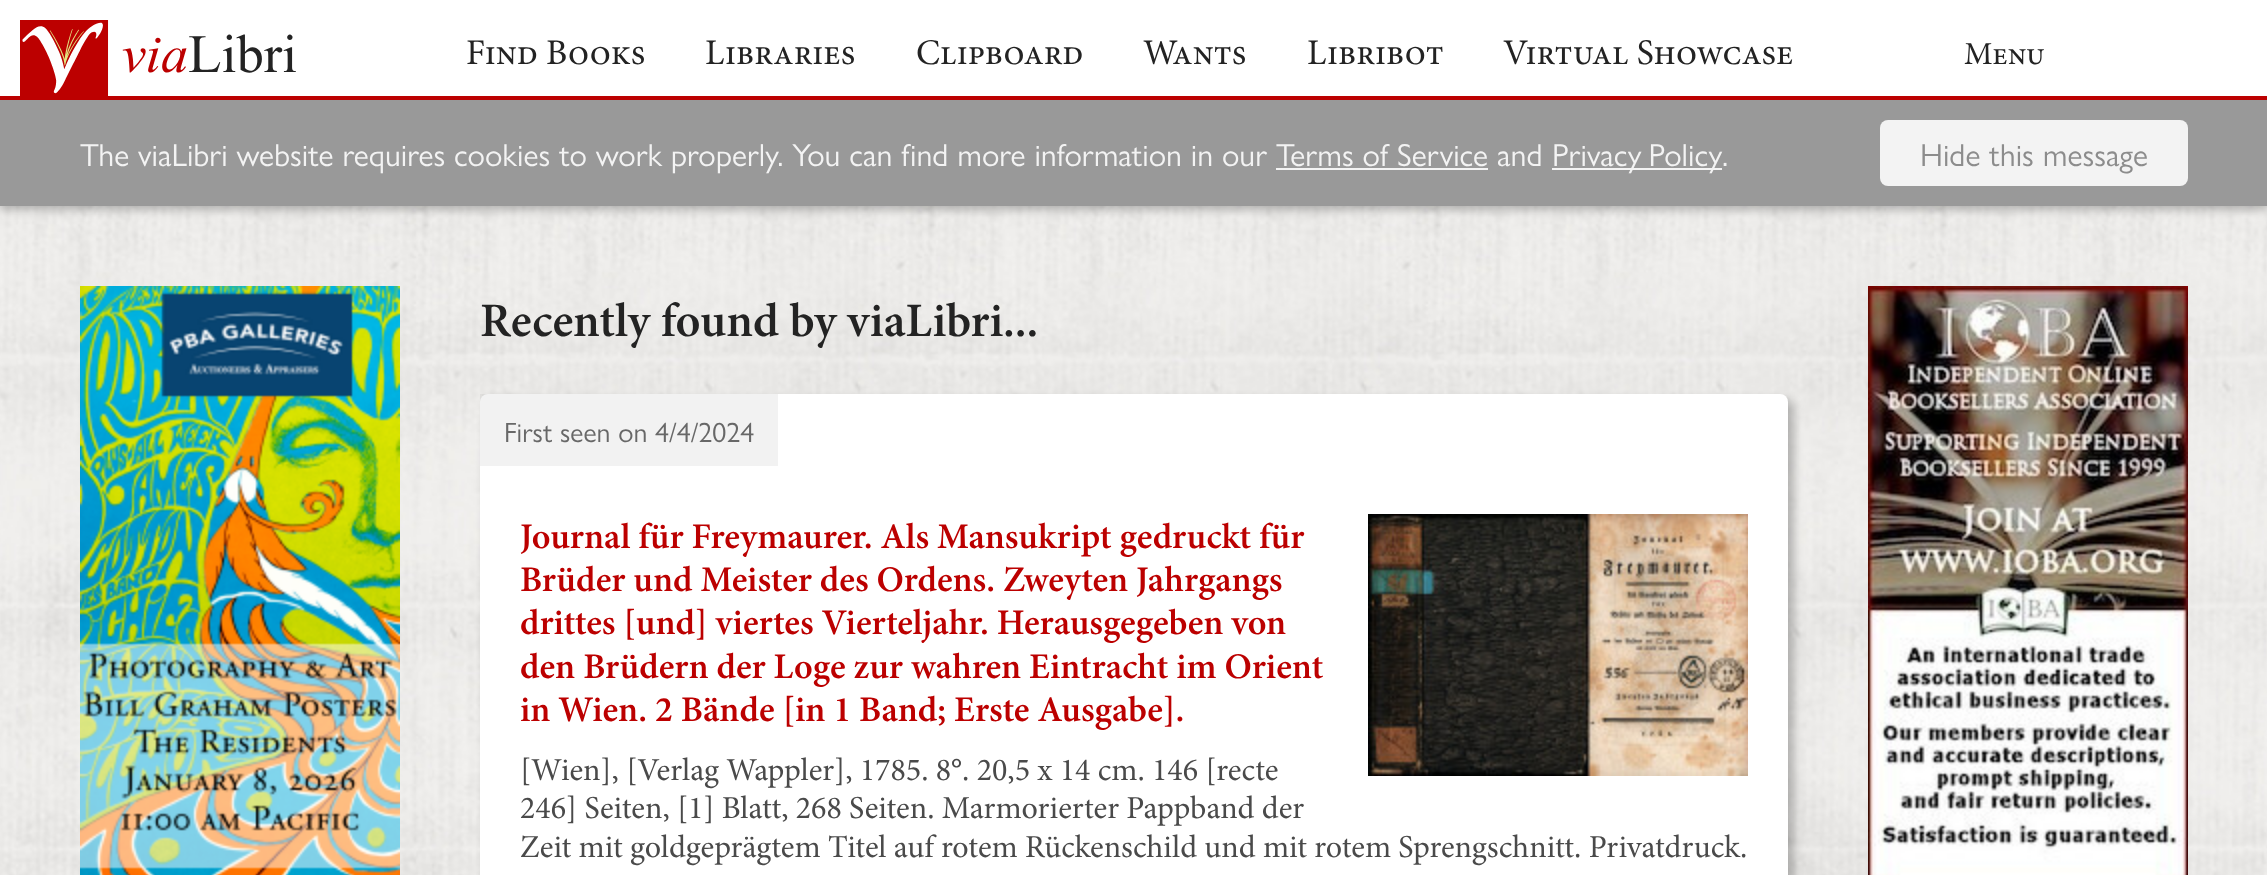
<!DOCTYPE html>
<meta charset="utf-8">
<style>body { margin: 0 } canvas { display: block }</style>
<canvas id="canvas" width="2267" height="875"></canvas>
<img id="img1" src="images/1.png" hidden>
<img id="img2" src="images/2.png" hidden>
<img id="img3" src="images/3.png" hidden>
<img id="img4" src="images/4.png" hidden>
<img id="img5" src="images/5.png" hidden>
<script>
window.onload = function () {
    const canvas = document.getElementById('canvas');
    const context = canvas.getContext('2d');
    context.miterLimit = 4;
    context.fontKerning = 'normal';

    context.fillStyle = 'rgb(255, 255, 255)';
    context.fillRect(0, 0, 2267, 875);
    context.drawImage(document.getElementById('img1'), 0, 206, 2267, 669);
    context.fillStyle = 'rgba(0, 0, 0, 0.25)';
    context.filter = 'blur(5px)';
    context.beginPath();
    context.rect(0, 4, 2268, 206);
    context.fill();
    context.filter = 'none';
    context.fillStyle = 'rgb(255, 255, 255)';
    context.fillRect(0, 0, 2267, 96);
    context.fillStyle = 'rgb(188, 0, 0)';
    context.fillRect(0, 96, 2267, 4);
    context.drawImage(document.getElementById('img2'), 20, 20, 276, 76);
    context.fillStyle = 'rgb(153, 153, 153)';
    context.fillRect(0, 100, 2267, 106);
    context.fillStyle = 'rgb(243, 243, 243)';
    context.fillRect(1276, 168, 212, 2);
    context.fillRect(1552, 168, 170, 2);
    context.beginPath();
    context.roundRect(1880, 120, 308, 66, 8);
    context.fill();
    context.drawImage(document.getElementById('img3'), 80, 286, 320, 589);
    context.fillStyle = 'rgba(0, 0, 0, 0.25)';
    context.filter = 'blur(5px)';
    context.beginPath();
    context.roundRect(486, 400, 1308, 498, 8);
    context.fill();
    context.filter = 'none';
    context.fillStyle = 'rgb(255, 255, 255)';
    context.beginPath();
    context.roundRect(480, 394, 1308, 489, 8);
    context.fill();
    context.fillStyle = 'rgba(0, 0, 0, 0.05)';
    context.fillRect(480, 394, 298, 72);
    context.drawImage(document.getElementById('img4'), 1368, 514, 380, 262);
    context.drawImage(document.getElementById('img5'), 1868, 286, 320, 589);
    context.font = '36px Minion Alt';
    context.fillStyle = 'rgb(35, 35, 35)';
    context.fillText('Find Books', 466, 64);
    context.fillText('Libraries', 705, 64);
    context.fillText('Clipboard', 916, 64);
    context.fillText('Wants', 1143, 64);
    context.fillText('Libribot', 1307, 64);
    context.fillText('Virtual Showcase', 1503, 64);
    context.font = '32px Minion Alt';
    context.fillText('Menu', 1964, 64);
    context.font = '32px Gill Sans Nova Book';
    context.fillStyle = 'rgb(243, 243, 243)';
    context.fillText('The viaLibri website requires cookies to work properly. You can find more information in our Terms of Service and', 80, 166);
    context.wordSpacing = '-2px';
    context.fillText('Privacy Policy', 1552, 166);
    context.wordSpacing = '0px';
    context.fillText('.', 1722, 166);
    context.fillStyle = 'rgb(140, 140, 140)';
    context.fillText('Hide this message', 1920, 166);
    context.font = '600 48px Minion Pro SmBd';
    context.fillStyle = 'rgb(35, 35, 35)';
    context.fillText('Recently found by viaLibri...', 480, 336);
    context.font = '28px Gill Sans Nova Book';
    context.fillStyle = 'rgb(104, 104, 104)';
    context.fillText('First seen on 4/4/2024', 504, 442);
    context.font = '600 36px Minion Pro SmBd';
    context.fillStyle = 'rgb(188, 0, 0)';
    context.fillText('Journal für Freymaurer. Als Mansukript gedruckt für', 520, 548);
    context.fillText('Brüder und Meister des Ordens. Zweyten Jahrgangs', 520, 591);
    context.fillText('drittes [und] viertes Vierteljahr. Herausgegeben von', 520, 634);
    context.fillText('den Brüdern der Loge zur wahren Eintracht im Orient', 520, 678);
    context.fillText('in Wien. 2 Bände [in 1 Band; Erste Ausgabe].', 520, 721);
    context.font = '32px Minion';
    context.fillStyle = 'rgb(74, 74, 74)';
    context.fillText('[Wien], [Verlag Wappler], 1785. 8°. 20,5 x 14 cm. 146 [recte', 520, 780);
    context.fillText('246] Seiten, [1] Blatt, 268 Seiten. Marmorierter Pappband der', 520, 818);
    context.fillText('Zeit mit goldgeprägtem Titel auf rotem Rückenschild und mit rotem Sprengschnitt. Privatdruck.', 520, 857);
};
</script>
